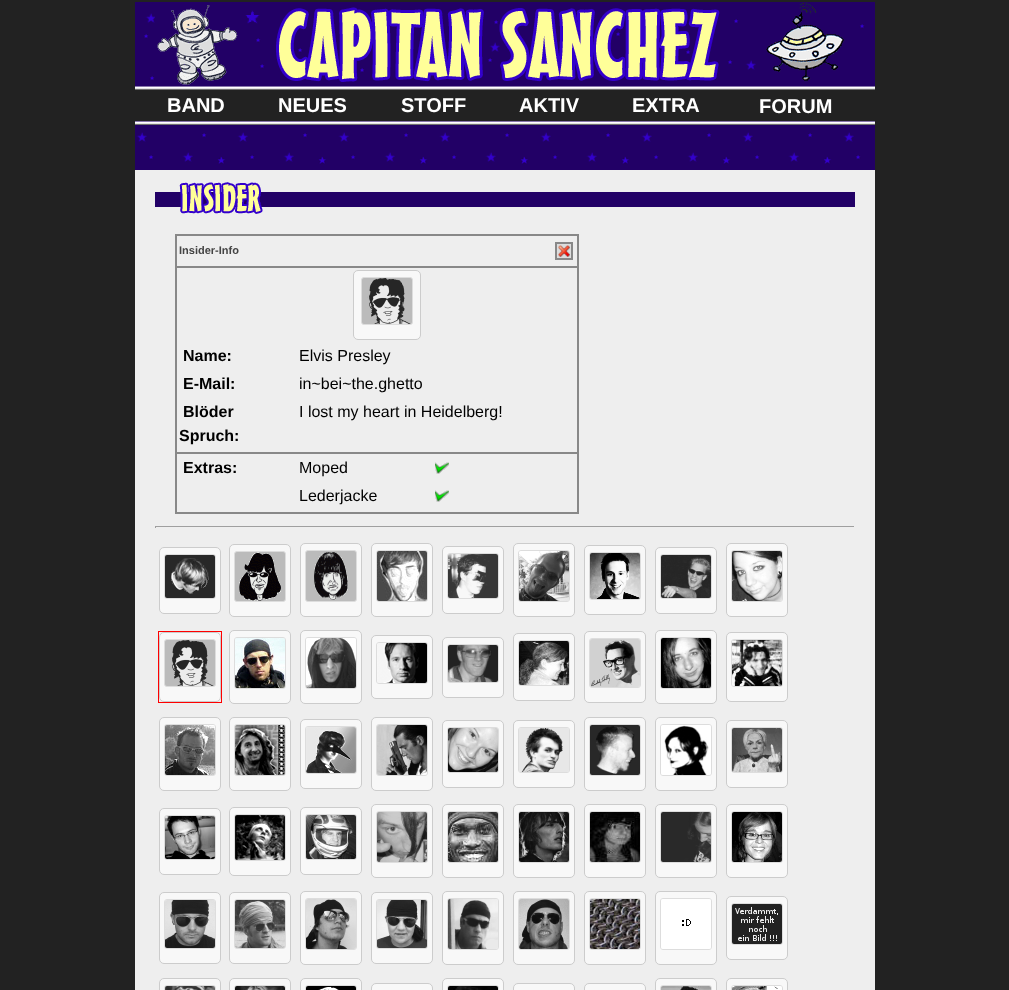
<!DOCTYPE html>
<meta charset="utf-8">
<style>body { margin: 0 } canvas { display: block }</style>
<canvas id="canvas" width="1009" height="990"></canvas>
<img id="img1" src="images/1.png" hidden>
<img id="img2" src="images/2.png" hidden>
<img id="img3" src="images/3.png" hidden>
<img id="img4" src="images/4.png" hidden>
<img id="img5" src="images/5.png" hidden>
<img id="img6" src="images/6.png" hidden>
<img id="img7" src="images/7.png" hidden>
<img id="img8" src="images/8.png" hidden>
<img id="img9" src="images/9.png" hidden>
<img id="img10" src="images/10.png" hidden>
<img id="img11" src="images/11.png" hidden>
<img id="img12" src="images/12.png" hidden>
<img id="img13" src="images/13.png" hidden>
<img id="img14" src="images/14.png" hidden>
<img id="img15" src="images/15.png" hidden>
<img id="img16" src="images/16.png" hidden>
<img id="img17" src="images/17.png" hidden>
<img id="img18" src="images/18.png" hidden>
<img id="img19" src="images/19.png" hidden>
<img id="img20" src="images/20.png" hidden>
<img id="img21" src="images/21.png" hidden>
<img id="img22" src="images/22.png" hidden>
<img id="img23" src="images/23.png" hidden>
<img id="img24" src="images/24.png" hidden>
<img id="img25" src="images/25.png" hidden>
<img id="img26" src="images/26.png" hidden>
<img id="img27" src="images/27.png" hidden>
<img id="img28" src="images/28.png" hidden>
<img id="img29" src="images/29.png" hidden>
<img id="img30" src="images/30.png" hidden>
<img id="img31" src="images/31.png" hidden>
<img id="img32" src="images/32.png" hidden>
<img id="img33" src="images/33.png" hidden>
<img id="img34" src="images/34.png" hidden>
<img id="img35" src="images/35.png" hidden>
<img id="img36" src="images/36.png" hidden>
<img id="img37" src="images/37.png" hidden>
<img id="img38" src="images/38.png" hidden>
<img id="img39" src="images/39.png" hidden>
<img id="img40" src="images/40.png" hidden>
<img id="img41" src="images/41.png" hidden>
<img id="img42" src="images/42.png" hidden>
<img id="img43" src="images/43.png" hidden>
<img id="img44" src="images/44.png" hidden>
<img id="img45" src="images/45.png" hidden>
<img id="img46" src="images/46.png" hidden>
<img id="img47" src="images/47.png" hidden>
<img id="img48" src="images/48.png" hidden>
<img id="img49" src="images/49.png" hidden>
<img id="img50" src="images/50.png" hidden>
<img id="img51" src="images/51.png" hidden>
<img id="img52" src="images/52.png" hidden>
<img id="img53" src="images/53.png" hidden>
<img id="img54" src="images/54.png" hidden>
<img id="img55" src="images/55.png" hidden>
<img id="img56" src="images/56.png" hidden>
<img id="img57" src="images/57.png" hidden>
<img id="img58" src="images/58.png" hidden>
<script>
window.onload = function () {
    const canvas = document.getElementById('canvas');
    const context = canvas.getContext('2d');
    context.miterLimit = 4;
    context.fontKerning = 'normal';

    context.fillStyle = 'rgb(34, 34, 34)';
    context.fillRect(0, 0, 1009, 990);
    context.drawImage(document.getElementById('img1'), 135, 2, 740, 88);
    context.drawImage(document.getElementById('img2'), 155, 5, 86, 80);
    context.drawImage(document.getElementById('img3'), 765, 2, 80, 80);
    context.drawImage(document.getElementById('img4'), 135, 121, 740, 49);
    context.fillStyle = 'rgb(238, 238, 238)';
    context.fillRect(135, 170, 740, 820);
    context.fillStyle = 'rgb(34, 0, 102)';
    context.fillRect(155, 192, 700, 15);
    context.drawImage(document.getElementById('img5'), 179, 182, 84, 32);
    context.strokeStyle = 'rgb(136, 136, 136)';
    context.strokeRect(175.5, 234.5, 403, 279);
    context.strokeRect(176.5, 235.5, 401, 31);
    context.fillStyle = 'rgb(221, 221, 221)';
    context.beginPath();
    context.rect(556, 243, 16, 16);
    context.fill();
    context.lineWidth = 2;
    context.stroke();
    context.drawImage(document.getElementById('img6'), 558, 245, 12, 12);
    context.lineWidth = 1;
    context.strokeRect(176.5, 267.5, 401, 185);
    context.fillStyle = 'rgb(248, 248, 248)';
    context.beginPath();
    context.roundRect(353.5, 270.5, 67, 69, 4.5);
    context.fill();
    context.strokeStyle = 'rgb(204, 204, 204)';
    context.stroke();
    context.fillStyle = 'rgb(187, 187, 187)';
    context.beginPath();
    context.roundRect(361.5, 277.5, 51, 47, 2.5);
    context.fill();
    context.strokeStyle = 'rgb(221, 221, 221)';
    context.stroke();
    context.drawImage(document.getElementById('img7'), 367, 278, 44, 46);
    context.strokeStyle = 'rgb(136, 136, 136)';
    context.strokeRect(176.5, 453.5, 401, 59);
    context.drawImage(document.getElementById('img8'), 435, 462, 14, 12);
    context.drawImage(document.getElementById('img8'), 435, 490, 14, 12);
    context.fillStyle = 'rgb(159, 159, 159)';
    context.fillRect(155, 526, 700, 1);
    context.fillStyle = 'rgb(238, 238, 238)';
    context.fillRect(854, 526, 1, 2);
    context.fillStyle = 'rgb(159, 159, 159)';
    context.fillRect(155, 526, 1, 2);
    context.fillStyle = 'rgb(248, 248, 248)';
    context.beginPath();
    context.roundRect(159.5, 547.5, 61, 66, 4.5);
    context.fill();
    context.strokeStyle = 'rgb(204, 204, 204)';
    context.stroke();
    context.beginPath();
    context.roundRect(164.5, 554.5, 51, 44, 2.5);
    context.strokeStyle = 'rgb(221, 221, 221)';
    context.stroke();
    context.drawImage(document.getElementById('img9'), 165, 555, 50, 43);
    context.beginPath();
    context.roundRect(229.5, 544.5, 61, 72, 4.5);
    context.fill();
    context.strokeStyle = 'rgb(204, 204, 204)';
    context.stroke();
    context.fillStyle = 'rgb(187, 187, 187)';
    context.beginPath();
    context.roundRect(234.5, 551.5, 51, 50, 2.5);
    context.fill();
    context.strokeStyle = 'rgb(221, 221, 221)';
    context.stroke();
    context.drawImage(document.getElementById('img10'), 239, 552, 42, 49);
    context.fillStyle = 'rgb(248, 248, 248)';
    context.beginPath();
    context.roundRect(300.5, 543.5, 61, 73, 4.5);
    context.fill();
    context.strokeStyle = 'rgb(204, 204, 204)';
    context.stroke();
    context.fillStyle = 'rgb(187, 187, 187)';
    context.beginPath();
    context.roundRect(305.5, 550.5, 51, 51, 2.5);
    context.fill();
    context.strokeStyle = 'rgb(221, 221, 221)';
    context.stroke();
    context.drawImage(document.getElementById('img11'), 314, 552, 34, 48);
    context.fillStyle = 'rgb(248, 248, 248)';
    context.beginPath();
    context.roundRect(371.5, 543.5, 61, 73, 4.5);
    context.fill();
    context.strokeStyle = 'rgb(204, 204, 204)';
    context.stroke();
    context.beginPath();
    context.roundRect(376.5, 550.5, 51, 51, 2.5);
    context.strokeStyle = 'rgb(221, 221, 221)';
    context.stroke();
    context.drawImage(document.getElementById('img12'), 377, 551, 50, 50);
    context.beginPath();
    context.roundRect(442.5, 546.5, 61, 67, 4.5);
    context.fill();
    context.strokeStyle = 'rgb(204, 204, 204)';
    context.stroke();
    context.beginPath();
    context.roundRect(447.5, 553.5, 51, 45, 2.5);
    context.strokeStyle = 'rgb(221, 221, 221)';
    context.stroke();
    context.drawImage(document.getElementById('img13'), 448, 554, 50, 44);
    context.beginPath();
    context.roundRect(513.5, 543.5, 61, 73, 4.5);
    context.fill();
    context.strokeStyle = 'rgb(204, 204, 204)';
    context.stroke();
    context.beginPath();
    context.roundRect(518.5, 550.5, 51, 51, 2.5);
    context.strokeStyle = 'rgb(221, 221, 221)';
    context.stroke();
    context.drawImage(document.getElementById('img14'), 519, 551, 50, 50);
    context.beginPath();
    context.roundRect(584.5, 545.5, 61, 69, 4.5);
    context.fill();
    context.strokeStyle = 'rgb(204, 204, 204)';
    context.stroke();
    context.beginPath();
    context.roundRect(589.5, 552.5, 51, 47, 2.5);
    context.strokeStyle = 'rgb(221, 221, 221)';
    context.stroke();
    context.drawImage(document.getElementById('img15'), 590, 553, 50, 46);
    context.beginPath();
    context.roundRect(655.5, 547.5, 61, 66, 4.5);
    context.fill();
    context.strokeStyle = 'rgb(204, 204, 204)';
    context.stroke();
    context.beginPath();
    context.roundRect(660.5, 554.5, 51, 44, 2.5);
    context.strokeStyle = 'rgb(221, 221, 221)';
    context.stroke();
    context.drawImage(document.getElementById('img16'), 661, 555, 50, 43);
    context.beginPath();
    context.roundRect(726.5, 543.5, 61, 73, 4.5);
    context.fill();
    context.strokeStyle = 'rgb(204, 204, 204)';
    context.stroke();
    context.beginPath();
    context.roundRect(731.5, 550.5, 51, 51, 2.5);
    context.strokeStyle = 'rgb(221, 221, 221)';
    context.stroke();
    context.drawImage(document.getElementById('img17'), 732, 551, 50, 50);
    context.strokeStyle = 'rgb(255, 0, 0)';
    context.strokeRect(158.5, 631.5, 63, 71);
    context.beginPath();
    context.roundRect(159.5, 632.5, 61, 69, 4.5);
    context.fill();
    context.strokeStyle = 'rgb(204, 204, 204)';
    context.stroke();
    context.fillStyle = 'rgb(187, 187, 187)';
    context.beginPath();
    context.roundRect(164.5, 639.5, 51, 47, 2.5);
    context.fill();
    context.strokeStyle = 'rgb(221, 221, 221)';
    context.stroke();
    context.drawImage(document.getElementById('img7'), 170, 640, 44, 46);
    context.fillStyle = 'rgb(248, 248, 248)';
    context.beginPath();
    context.roundRect(229.5, 630.5, 61, 73, 4.5);
    context.fill();
    context.strokeStyle = 'rgb(204, 204, 204)';
    context.stroke();
    context.beginPath();
    context.roundRect(234.5, 637.5, 51, 51, 2.5);
    context.strokeStyle = 'rgb(221, 221, 221)';
    context.stroke();
    context.drawImage(document.getElementById('img18'), 235, 638, 50, 50);
    context.beginPath();
    context.roundRect(300.5, 630.5, 61, 73, 4.5);
    context.fill();
    context.strokeStyle = 'rgb(204, 204, 204)';
    context.stroke();
    context.beginPath();
    context.roundRect(305.5, 637.5, 51, 51, 2.5);
    context.strokeStyle = 'rgb(221, 221, 221)';
    context.stroke();
    context.drawImage(document.getElementById('img19'), 306, 638, 50, 50);
    context.beginPath();
    context.roundRect(371.5, 635.5, 61, 63, 4.5);
    context.fill();
    context.strokeStyle = 'rgb(204, 204, 204)';
    context.stroke();
    context.beginPath();
    context.roundRect(376.5, 642.5, 51, 41, 2.5);
    context.strokeStyle = 'rgb(221, 221, 221)';
    context.stroke();
    context.drawImage(document.getElementById('img20'), 377, 643, 50, 40);
    context.beginPath();
    context.roundRect(442.5, 637.5, 61, 60, 4.5);
    context.fill();
    context.strokeStyle = 'rgb(204, 204, 204)';
    context.stroke();
    context.beginPath();
    context.roundRect(447.5, 644.5, 51, 38, 2.5);
    context.strokeStyle = 'rgb(221, 221, 221)';
    context.stroke();
    context.drawImage(document.getElementById('img21'), 448, 645, 50, 37);
    context.beginPath();
    context.roundRect(513.5, 633.5, 61, 67, 4.5);
    context.fill();
    context.strokeStyle = 'rgb(204, 204, 204)';
    context.stroke();
    context.beginPath();
    context.roundRect(518.5, 640.5, 51, 45, 2.5);
    context.strokeStyle = 'rgb(221, 221, 221)';
    context.stroke();
    context.drawImage(document.getElementById('img22'), 519, 641, 50, 44);
    context.beginPath();
    context.roundRect(584.5, 631.5, 61, 71, 4.5);
    context.fill();
    context.strokeStyle = 'rgb(204, 204, 204)';
    context.stroke();
    context.beginPath();
    context.roundRect(589.5, 638.5, 51, 49, 2.5);
    context.strokeStyle = 'rgb(221, 221, 221)';
    context.stroke();
    context.drawImage(document.getElementById('img23'), 590, 639, 50, 48);
    context.beginPath();
    context.roundRect(655.5, 630.5, 61, 73, 4.5);
    context.fill();
    context.strokeStyle = 'rgb(204, 204, 204)';
    context.stroke();
    context.beginPath();
    context.roundRect(660.5, 637.5, 51, 51, 2.5);
    context.strokeStyle = 'rgb(221, 221, 221)';
    context.stroke();
    context.drawImage(document.getElementById('img24'), 661, 638, 50, 50);
    context.beginPath();
    context.roundRect(726.5, 632.5, 61, 69, 4.5);
    context.fill();
    context.strokeStyle = 'rgb(204, 204, 204)';
    context.stroke();
    context.beginPath();
    context.roundRect(731.5, 639.5, 51, 47, 2.5);
    context.strokeStyle = 'rgb(221, 221, 221)';
    context.stroke();
    context.drawImage(document.getElementById('img25'), 732, 640, 50, 46);
    context.beginPath();
    context.roundRect(159.5, 717.5, 61, 73, 4.5);
    context.fill();
    context.strokeStyle = 'rgb(204, 204, 204)';
    context.stroke();
    context.beginPath();
    context.roundRect(164.5, 724.5, 51, 51, 2.5);
    context.strokeStyle = 'rgb(221, 221, 221)';
    context.stroke();
    context.drawImage(document.getElementById('img26'), 165, 725, 50, 50);
    context.beginPath();
    context.roundRect(229.5, 717.5, 61, 73, 4.5);
    context.fill();
    context.strokeStyle = 'rgb(204, 204, 204)';
    context.stroke();
    context.beginPath();
    context.roundRect(234.5, 724.5, 51, 51, 2.5);
    context.strokeStyle = 'rgb(221, 221, 221)';
    context.stroke();
    context.drawImage(document.getElementById('img27'), 235, 725, 50, 50);
    context.beginPath();
    context.roundRect(300.5, 719.5, 61, 69, 4.5);
    context.fill();
    context.strokeStyle = 'rgb(204, 204, 204)';
    context.stroke();
    context.beginPath();
    context.roundRect(305.5, 726.5, 51, 47, 2.5);
    context.strokeStyle = 'rgb(221, 221, 221)';
    context.stroke();
    context.drawImage(document.getElementById('img28'), 306, 727, 50, 46);
    context.beginPath();
    context.roundRect(371.5, 717.5, 61, 73, 4.5);
    context.fill();
    context.strokeStyle = 'rgb(204, 204, 204)';
    context.stroke();
    context.beginPath();
    context.roundRect(376.5, 724.5, 51, 51, 2.5);
    context.strokeStyle = 'rgb(221, 221, 221)';
    context.stroke();
    context.drawImage(document.getElementById('img29'), 377, 725, 50, 50);
    context.beginPath();
    context.roundRect(442.5, 720.5, 61, 67, 4.5);
    context.fill();
    context.strokeStyle = 'rgb(204, 204, 204)';
    context.stroke();
    context.beginPath();
    context.roundRect(447.5, 727.5, 51, 45, 2.5);
    context.strokeStyle = 'rgb(221, 221, 221)';
    context.stroke();
    context.drawImage(document.getElementById('img30'), 448, 728, 50, 44);
    context.beginPath();
    context.roundRect(513.5, 720.5, 61, 67, 4.5);
    context.fill();
    context.strokeStyle = 'rgb(204, 204, 204)';
    context.stroke();
    context.beginPath();
    context.roundRect(518.5, 727.5, 51, 45, 2.5);
    context.strokeStyle = 'rgb(221, 221, 221)';
    context.stroke();
    context.drawImage(document.getElementById('img31'), 519, 728, 50, 44);
    context.beginPath();
    context.roundRect(584.5, 717.5, 61, 73, 4.5);
    context.fill();
    context.strokeStyle = 'rgb(204, 204, 204)';
    context.stroke();
    context.beginPath();
    context.roundRect(589.5, 724.5, 51, 51, 2.5);
    context.strokeStyle = 'rgb(221, 221, 221)';
    context.stroke();
    context.drawImage(document.getElementById('img32'), 590, 725, 50, 50);
    context.beginPath();
    context.roundRect(655.5, 717.5, 61, 73, 4.5);
    context.fill();
    context.strokeStyle = 'rgb(204, 204, 204)';
    context.stroke();
    context.beginPath();
    context.roundRect(660.5, 724.5, 51, 51, 2.5);
    context.strokeStyle = 'rgb(221, 221, 221)';
    context.stroke();
    context.drawImage(document.getElementById('img33'), 661, 725, 50, 50);
    context.beginPath();
    context.roundRect(726.5, 720.5, 61, 67, 4.5);
    context.fill();
    context.strokeStyle = 'rgb(204, 204, 204)';
    context.stroke();
    context.beginPath();
    context.roundRect(731.5, 727.5, 51, 45, 2.5);
    context.strokeStyle = 'rgb(221, 221, 221)';
    context.stroke();
    context.drawImage(document.getElementById('img34'), 732, 728, 50, 44);
    context.beginPath();
    context.roundRect(159.5, 808.5, 61, 66, 4.5);
    context.fill();
    context.strokeStyle = 'rgb(204, 204, 204)';
    context.stroke();
    context.beginPath();
    context.roundRect(164.5, 815.5, 51, 44, 2.5);
    context.strokeStyle = 'rgb(221, 221, 221)';
    context.stroke();
    context.drawImage(document.getElementById('img35'), 165, 816, 50, 43);
    context.beginPath();
    context.roundRect(229.5, 807.5, 61, 68, 4.5);
    context.fill();
    context.strokeStyle = 'rgb(204, 204, 204)';
    context.stroke();
    context.beginPath();
    context.roundRect(234.5, 814.5, 51, 46, 2.5);
    context.strokeStyle = 'rgb(221, 221, 221)';
    context.stroke();
    context.drawImage(document.getElementById('img36'), 235, 815, 50, 45);
    context.beginPath();
    context.roundRect(300.5, 807.5, 61, 67, 4.5);
    context.fill();
    context.strokeStyle = 'rgb(204, 204, 204)';
    context.stroke();
    context.beginPath();
    context.roundRect(305.5, 814.5, 51, 45, 2.5);
    context.strokeStyle = 'rgb(221, 221, 221)';
    context.stroke();
    context.drawImage(document.getElementById('img37'), 306, 815, 50, 44);
    context.beginPath();
    context.roundRect(371.5, 804.5, 61, 73, 4.5);
    context.fill();
    context.strokeStyle = 'rgb(204, 204, 204)';
    context.stroke();
    context.beginPath();
    context.roundRect(376.5, 811.5, 51, 51, 2.5);
    context.strokeStyle = 'rgb(221, 221, 221)';
    context.stroke();
    context.drawImage(document.getElementById('img38'), 377, 812, 50, 50);
    context.beginPath();
    context.roundRect(442.5, 804.5, 61, 73, 4.5);
    context.fill();
    context.strokeStyle = 'rgb(204, 204, 204)';
    context.stroke();
    context.beginPath();
    context.roundRect(447.5, 811.5, 51, 51, 2.5);
    context.strokeStyle = 'rgb(221, 221, 221)';
    context.stroke();
    context.drawImage(document.getElementById('img39'), 448, 812, 50, 50);
    context.beginPath();
    context.roundRect(513.5, 804.5, 61, 73, 4.5);
    context.fill();
    context.strokeStyle = 'rgb(204, 204, 204)';
    context.stroke();
    context.beginPath();
    context.roundRect(518.5, 811.5, 51, 51, 2.5);
    context.strokeStyle = 'rgb(221, 221, 221)';
    context.stroke();
    context.drawImage(document.getElementById('img40'), 519, 812, 50, 50);
    context.beginPath();
    context.roundRect(584.5, 804.5, 61, 73, 4.5);
    context.fill();
    context.strokeStyle = 'rgb(204, 204, 204)';
    context.stroke();
    context.beginPath();
    context.roundRect(589.5, 811.5, 51, 51, 2.5);
    context.strokeStyle = 'rgb(221, 221, 221)';
    context.stroke();
    context.drawImage(document.getElementById('img41'), 590, 812, 50, 50);
    context.beginPath();
    context.roundRect(655.5, 804.5, 61, 73, 4.5);
    context.fill();
    context.strokeStyle = 'rgb(204, 204, 204)';
    context.stroke();
    context.beginPath();
    context.roundRect(660.5, 811.5, 51, 51, 2.5);
    context.strokeStyle = 'rgb(221, 221, 221)';
    context.stroke();
    context.drawImage(document.getElementById('img42'), 661, 812, 50, 50);
    context.beginPath();
    context.roundRect(726.5, 804.5, 61, 73, 4.5);
    context.fill();
    context.strokeStyle = 'rgb(204, 204, 204)';
    context.stroke();
    context.beginPath();
    context.roundRect(731.5, 811.5, 51, 51, 2.5);
    context.strokeStyle = 'rgb(221, 221, 221)';
    context.stroke();
    context.drawImage(document.getElementById('img43'), 732, 812, 50, 50);
    context.beginPath();
    context.roundRect(159.5, 892.5, 61, 71, 4.5);
    context.fill();
    context.strokeStyle = 'rgb(204, 204, 204)';
    context.stroke();
    context.beginPath();
    context.roundRect(164.5, 899.5, 51, 49, 2.5);
    context.strokeStyle = 'rgb(221, 221, 221)';
    context.stroke();
    context.drawImage(document.getElementById('img44'), 165, 900, 50, 48);
    context.beginPath();
    context.roundRect(229.5, 892.5, 61, 71, 4.5);
    context.fill();
    context.strokeStyle = 'rgb(204, 204, 204)';
    context.stroke();
    context.beginPath();
    context.roundRect(234.5, 899.5, 51, 49, 2.5);
    context.strokeStyle = 'rgb(221, 221, 221)';
    context.stroke();
    context.drawImage(document.getElementById('img45'), 235, 900, 50, 48);
    context.beginPath();
    context.roundRect(300.5, 891.5, 61, 73, 4.5);
    context.fill();
    context.strokeStyle = 'rgb(204, 204, 204)';
    context.stroke();
    context.beginPath();
    context.roundRect(305.5, 898.5, 51, 51, 2.5);
    context.strokeStyle = 'rgb(221, 221, 221)';
    context.stroke();
    context.drawImage(document.getElementById('img46'), 306, 899, 50, 50);
    context.beginPath();
    context.roundRect(371.5, 892.5, 61, 71, 4.5);
    context.fill();
    context.strokeStyle = 'rgb(204, 204, 204)';
    context.stroke();
    context.beginPath();
    context.roundRect(376.5, 899.5, 51, 49, 2.5);
    context.strokeStyle = 'rgb(221, 221, 221)';
    context.stroke();
    context.drawImage(document.getElementById('img47'), 377, 900, 50, 48);
    context.beginPath();
    context.roundRect(442.5, 891.5, 61, 73, 4.5);
    context.fill();
    context.strokeStyle = 'rgb(204, 204, 204)';
    context.stroke();
    context.beginPath();
    context.roundRect(447.5, 898.5, 51, 51, 2.5);
    context.strokeStyle = 'rgb(221, 221, 221)';
    context.stroke();
    context.drawImage(document.getElementById('img48'), 448, 899, 50, 50);
    context.beginPath();
    context.roundRect(513.5, 891.5, 61, 73, 4.5);
    context.fill();
    context.strokeStyle = 'rgb(204, 204, 204)';
    context.stroke();
    context.beginPath();
    context.roundRect(518.5, 898.5, 51, 51, 2.5);
    context.strokeStyle = 'rgb(221, 221, 221)';
    context.stroke();
    context.drawImage(document.getElementById('img49'), 519, 899, 50, 50);
    context.beginPath();
    context.roundRect(584.5, 891.5, 61, 73, 4.5);
    context.fill();
    context.strokeStyle = 'rgb(204, 204, 204)';
    context.stroke();
    context.beginPath();
    context.roundRect(589.5, 898.5, 51, 51, 2.5);
    context.strokeStyle = 'rgb(221, 221, 221)';
    context.stroke();
    context.drawImage(document.getElementById('img50'), 590, 899, 50, 50);
    context.beginPath();
    context.roundRect(655.5, 891.5, 61, 73, 4.5);
    context.fill();
    context.strokeStyle = 'rgb(204, 204, 204)';
    context.stroke();
    context.beginPath();
    context.roundRect(660.5, 898.5, 51, 51, 2.5);
    context.strokeStyle = 'rgb(221, 221, 221)';
    context.stroke();
    context.drawImage(document.getElementById('img51'), 661, 899, 50, 50);
    context.beginPath();
    context.roundRect(726.5, 896.5, 61, 63, 4.5);
    context.fill();
    context.strokeStyle = 'rgb(204, 204, 204)';
    context.stroke();
    context.beginPath();
    context.roundRect(731.5, 903.5, 51, 41, 2.5);
    context.strokeStyle = 'rgb(221, 221, 221)';
    context.stroke();
    context.drawImage(document.getElementById('img52'), 732, 904, 50, 40);
    context.beginPath();
    context.roundRect(159.5, 978.5, 61, 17, 4.5);
    context.fill();
    context.strokeStyle = 'rgb(204, 204, 204)';
    context.stroke();
    context.beginPath();
    context.roundRect(164.5, 985.5, 51, 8, 2.5);
    context.strokeStyle = 'rgb(221, 221, 221)';
    context.stroke();
    context.drawImage(document.getElementById('img53'), 165, 986, 50, 4);
    context.beginPath();
    context.roundRect(229.5, 978.5, 61, 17, 4.5);
    context.fill();
    context.strokeStyle = 'rgb(204, 204, 204)';
    context.stroke();
    context.beginPath();
    context.roundRect(234.5, 985.5, 51, 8, 2.5);
    context.strokeStyle = 'rgb(221, 221, 221)';
    context.stroke();
    context.drawImage(document.getElementById('img54'), 235, 986, 50, 4);
    context.beginPath();
    context.roundRect(300.5, 978.5, 61, 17, 4.5);
    context.fill();
    context.strokeStyle = 'rgb(204, 204, 204)';
    context.stroke();
    context.beginPath();
    context.roundRect(305.5, 985.5, 51, 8, 2.5);
    context.strokeStyle = 'rgb(221, 221, 221)';
    context.stroke();
    context.drawImage(document.getElementById('img55'), 306, 986, 50, 4);
    context.beginPath();
    context.roundRect(371.5, 983.5, 61, 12, 4.5);
    context.fill();
    context.strokeStyle = 'rgb(204, 204, 204)';
    context.stroke();
    context.beginPath();
    context.roundRect(442.5, 978.5, 61, 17, 4.5);
    context.fill();
    context.stroke();
    context.beginPath();
    context.roundRect(447.5, 985.5, 51, 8, 2.5);
    context.strokeStyle = 'rgb(221, 221, 221)';
    context.stroke();
    context.drawImage(document.getElementById('img56'), 448, 986, 50, 4);
    context.beginPath();
    context.roundRect(513.5, 983.5, 61, 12, 4.5);
    context.fill();
    context.strokeStyle = 'rgb(204, 204, 204)';
    context.stroke();
    context.beginPath();
    context.roundRect(584.5, 983.5, 61, 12, 4.5);
    context.fill();
    context.stroke();
    context.beginPath();
    context.roundRect(655.5, 978.5, 61, 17, 4.5);
    context.fill();
    context.stroke();
    context.beginPath();
    context.roundRect(660.5, 985.5, 51, 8, 2.5);
    context.strokeStyle = 'rgb(221, 221, 221)';
    context.stroke();
    context.drawImage(document.getElementById('img57'), 661, 986, 50, 4);
    context.beginPath();
    context.roundRect(726.5, 978.5, 61, 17, 4.5);
    context.fill();
    context.strokeStyle = 'rgb(204, 204, 204)';
    context.stroke();
    context.beginPath();
    context.roundRect(731.5, 985.5, 51, 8, 2.5);
    context.strokeStyle = 'rgb(221, 221, 221)';
    context.stroke();
    context.drawImage(document.getElementById('img58'), 732, 986, 50, 4);
    context.font = 'bold 20px Liberation Sans';
    context.fillStyle = 'rgb(255, 255, 255)';
    context.fillText('BAND', 167, 112);
    context.fillText('NEUES', 278, 112);
    context.fillText('STOFF', 401, 112);
    context.fillText('AKTIV', 519, 112);
    context.fillText('EXTRA', 632, 112);
    context.fillText('FORUM', 759, 113);
    context.font = 'bold 11px Liberation Sans';
    context.fillStyle = 'rgb(68, 68, 68)';
    context.fillText('Insider-Info', 179, 254);
    context.font = 'bold 16px Liberation Sans';
    context.fillStyle = 'rgb(0, 0, 0)';
    context.fillText('Name:', 183, 361);
    context.font = '16px Liberation Sans';
    context.fillText('Elvis Presley', 299, 361);
    context.font = 'bold 16px Liberation Sans';
    context.fillText('E-Mail:', 183, 389);
    context.font = '16px Liberation Sans';
    context.fillText('in~bei~the.ghetto', 299, 389);
    context.font = 'bold 16px Liberation Sans';
    context.fillText('Blöder', 183, 417);
    context.fillText('Spruch:', 179, 441);
    context.font = '16px Liberation Sans';
    context.fillText('I lost my heart in Heidelberg!', 299, 417);
    context.font = 'bold 16px Liberation Sans';
    context.fillText('Extras:', 183, 473);
    context.font = '16px Liberation Sans';
    context.fillText('Moped', 299, 473);
    context.fillText('Lederjacke', 299, 501);
};
</script>
